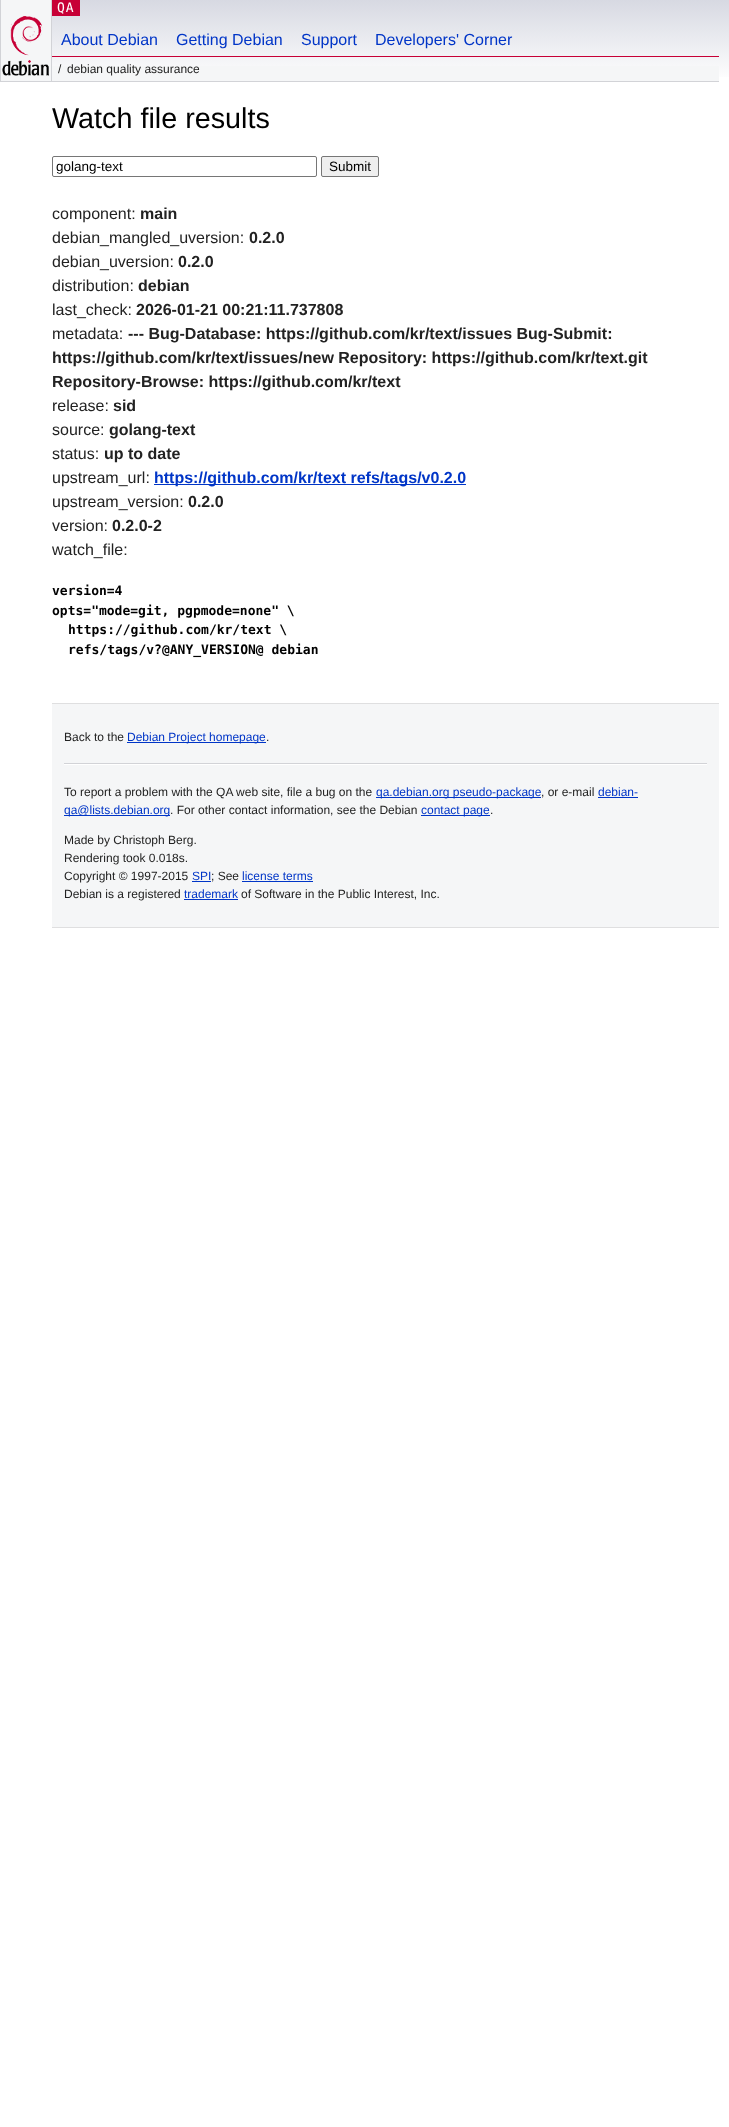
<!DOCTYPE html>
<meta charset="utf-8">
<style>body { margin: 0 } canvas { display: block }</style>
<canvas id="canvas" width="729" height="2127"></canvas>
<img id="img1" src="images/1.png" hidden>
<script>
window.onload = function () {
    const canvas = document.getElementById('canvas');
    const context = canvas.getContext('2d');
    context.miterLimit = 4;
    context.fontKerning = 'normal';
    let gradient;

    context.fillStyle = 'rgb(255, 255, 255)';
    context.fillRect(0, 0, 729, 2127);
    gradient = context.createLinearGradient(365, 0, 365, 82);
    gradient.addColorStop(0, 'rgb(215, 217, 226)');
    gradient.addColorStop(1, 'rgb(255, 255, 255)');
    context.fillStyle = gradient;
    context.fillRect(52, 0, 677, 77);
    context.fillStyle = 'rgb(245, 246, 247)';
    context.fillRect(1, 0, 50, 81);
    context.fillStyle = 'rgb(210, 211, 215)';
    context.fillRect(51, 0, 1, 82);
    context.fillRect(0, 81, 52, 1);
    context.fillRect(0, 0, 1, 82);
    context.drawImage(document.getElementById('img1'), 2, 16, 47, 60);
    context.fillStyle = 'rgb(199, 0, 54)';
    context.fillRect(52, 0, 28, 16);
    context.fillRect(52, 56, 667, 1);
    context.fillStyle = 'rgb(245, 246, 247)';
    context.fillRect(52, 66, 667, 15);
    context.fillStyle = 'rgb(210, 211, 215)';
    context.fillRect(52, 81, 667, 1);
    context.beginPath();
    context.roundRect(52.5, 156.5, 264, 20, 1.5);
    context.strokeStyle = 'rgb(118, 118, 118)';
    context.stroke();
    context.fillStyle = 'rgb(239, 239, 239)';
    context.beginPath();
    context.roundRect(321.5, 156.5, 57, 20, 1.5);
    context.fill();
    context.stroke();
    context.fillStyle = 'rgb(0, 53, 199)';
    context.fillRect(154, 484, 312, 1);
    context.fillStyle = 'rgb(245, 246, 247)';
    context.fillRect(52, 704, 667, 223);
    context.fillStyle = 'rgb(223, 223, 224)';
    context.fillRect(52, 703, 667, 1);
    context.fillRect(52, 927, 667, 1);
    context.fillStyle = 'rgb(0, 53, 199)';
    context.fillRect(127, 742, 139, 1);
    context.fillStyle = 'rgb(210, 211, 215)';
    context.fillRect(64, 763, 643, 1);
    context.fillStyle = 'rgb(255, 255, 255)';
    context.fillRect(64, 764, 643, 1);
    context.fillStyle = 'rgb(0, 53, 199)';
    context.fillRect(376, 797, 165, 1);
    context.fillRect(598, 797, 40, 1);
    context.fillRect(64, 815, 106, 1);
    context.fillRect(421, 815, 69, 1);
    context.fillRect(192, 881, 19, 1);
    context.fillRect(242, 881, 71, 1);
    context.fillRect(184, 899, 54, 1);
    context.letterSpacing = '1px';
    context.font = '13px DejaVu Sans Mono';
    context.fillStyle = 'rgb(255, 255, 255)';
    context.fillText('QA', 57, 12);
    context.letterSpacing = '0px';
    context.font = '16px Liberation Sans';
    context.fillStyle = 'rgb(0, 53, 199)';
    context.fillText('About Debian', 61, 45);
    context.fillText('Getting Debian', 176, 45);
    context.fillText('Support', 301, 45);
    context.fillText('Developers\' Corner', 375, 45);
    context.font = '12px Liberation Sans';
    context.fillStyle = 'rgb(34, 34, 34)';
    context.fillText('/', 58, 73);
    context.fillText('debian quality assurance', 67, 73);
    context.font = '28.75px Liberation Sans';
    context.fillStyle = 'rgb(0, 0, 0)';
    context.fillText('Watch file results', 52, 128);
    context.font = '13.5px Liberation Sans';
    context.fillText('golang-text', 56, 171);
    context.fillText('Submit', 329, 171);
    context.font = '16px Liberation Sans';
    context.fillStyle = 'rgb(34, 34, 34)';
    context.fillText('component:', 52, 219);
    context.font = 'bold 16px Liberation Sans';
    context.fillText('main', 140, 219);
    context.font = '16px Liberation Sans';
    context.fillText('debian_mangled_uversion:', 52, 243);
    context.font = 'bold 16px Liberation Sans';
    context.fillText('0.2.0', 249, 243);
    context.font = '16px Liberation Sans';
    context.fillText('debian_uversion:', 52, 267);
    context.font = 'bold 16px Liberation Sans';
    context.fillText('0.2.0', 178, 267);
    context.font = '16px Liberation Sans';
    context.fillText('distribution:', 52, 291);
    context.font = 'bold 16px Liberation Sans';
    context.fillText('debian', 138, 291);
    context.font = '16px Liberation Sans';
    context.fillText('last_check:', 52, 315);
    context.font = 'bold 16px Liberation Sans';
    context.fillText('2026-01-21 00:21:11.737808', 136, 315);
    context.font = '16px Liberation Sans';
    context.fillText('metadata:', 52, 339);
    context.font = 'bold 16px Liberation Sans';
    context.fillText('--- Bug-Database: https://github.com/kr/text/issues Bug-Submit:', 128, 339);
    context.fillText('https://github.com/kr/text/issues/new Repository: https://github.com/kr/text.git', 52, 363);
    context.fillText('Repository-Browse: https://github.com/kr/text', 52, 387);
    context.font = '16px Liberation Sans';
    context.fillText('release:', 52, 411);
    context.font = 'bold 16px Liberation Sans';
    context.fillText('sid', 113, 411);
    context.font = '16px Liberation Sans';
    context.fillText('source:', 52, 435);
    context.font = 'bold 16px Liberation Sans';
    context.fillText('golang-text', 109, 435);
    context.font = '16px Liberation Sans';
    context.fillText('status:', 52, 459);
    context.font = 'bold 16px Liberation Sans';
    context.fillText('up to date', 104, 459);
    context.font = '16px Liberation Sans';
    context.fillText('upstream_url:', 52, 483);
    context.font = 'bold 16px Liberation Sans';
    context.fillStyle = 'rgb(0, 53, 199)';
    context.fillText('https://github.com/kr/text refs/tags/v0.2.0', 154, 483);
    context.font = '16px Liberation Sans';
    context.fillStyle = 'rgb(34, 34, 34)';
    context.fillText('upstream_version:', 52, 507);
    context.font = 'bold 16px Liberation Sans';
    context.fillText('0.2.0', 188, 507);
    context.font = '16px Liberation Sans';
    context.fillText('version:', 52, 531);
    context.font = 'bold 16px Liberation Sans';
    context.fillText('0.2.0-2', 112, 531);
    context.font = '16px Liberation Sans';
    context.fillText('watch_file:', 52, 555);
    context.font = 'bold 13px DejaVu Sans Mono';
    context.fillStyle = 'rgb(0, 0, 0)';
    context.fillText('version=4', 52, 595);
    context.fillText('opts="mode=git, pgpmode=none" \\', 52, 615);
    context.fillText('https://github.com/kr/text \\', 68, 634);
    context.fillText('refs/tags/v?@ANY_VERSION@ debian', 68, 654);
    context.font = '12px Liberation Sans';
    context.fillStyle = 'rgb(34, 34, 34)';
    context.fillText('Back to the', 64, 741);
    context.fillStyle = 'rgb(0, 53, 199)';
    context.fillText('Debian Project homepage', 127, 741);
    context.fillStyle = 'rgb(34, 34, 34)';
    context.fillText('.', 266, 741);
    context.fillText('To report a problem with the QA web site, file a bug on the', 64, 796);
    context.fillStyle = 'rgb(0, 53, 199)';
    context.fillText('qa.debian.org pseudo-package', 376, 796);
    context.fillStyle = 'rgb(34, 34, 34)';
    context.fillText(', or e-mail', 541, 796);
    context.fillStyle = 'rgb(0, 53, 199)';
    context.fillText('debian-', 598, 796);
    context.fillText('qa@lists.debian.org', 64, 814);
    context.fillStyle = 'rgb(34, 34, 34)';
    context.fillText('. For other contact information, see the Debian', 170, 814);
    context.fillStyle = 'rgb(0, 53, 199)';
    context.fillText('contact page', 421, 814);
    context.fillStyle = 'rgb(34, 34, 34)';
    context.fillText('.', 490, 814);
    context.fillText('Made by Christoph Berg.', 64, 844);
    context.fillText('Rendering took 0.018s.', 64, 862);
    context.fillText('Copyright © 1997-2015', 64, 880);
    context.fillStyle = 'rgb(0, 53, 199)';
    context.fillText('SPI', 192, 880);
    context.fillStyle = 'rgb(34, 34, 34)';
    context.fillText('; See', 211, 880);
    context.fillStyle = 'rgb(0, 53, 199)';
    context.fillText('license terms', 242, 880);
    context.fillStyle = 'rgb(34, 34, 34)';
    context.fillText('Debian is a registered', 64, 898);
    context.fillStyle = 'rgb(0, 53, 199)';
    context.fillText('trademark', 184, 898);
    context.fillStyle = 'rgb(34, 34, 34)';
    context.fillText('of Software in the Public Interest, Inc.', 241, 898);
};
</script>
